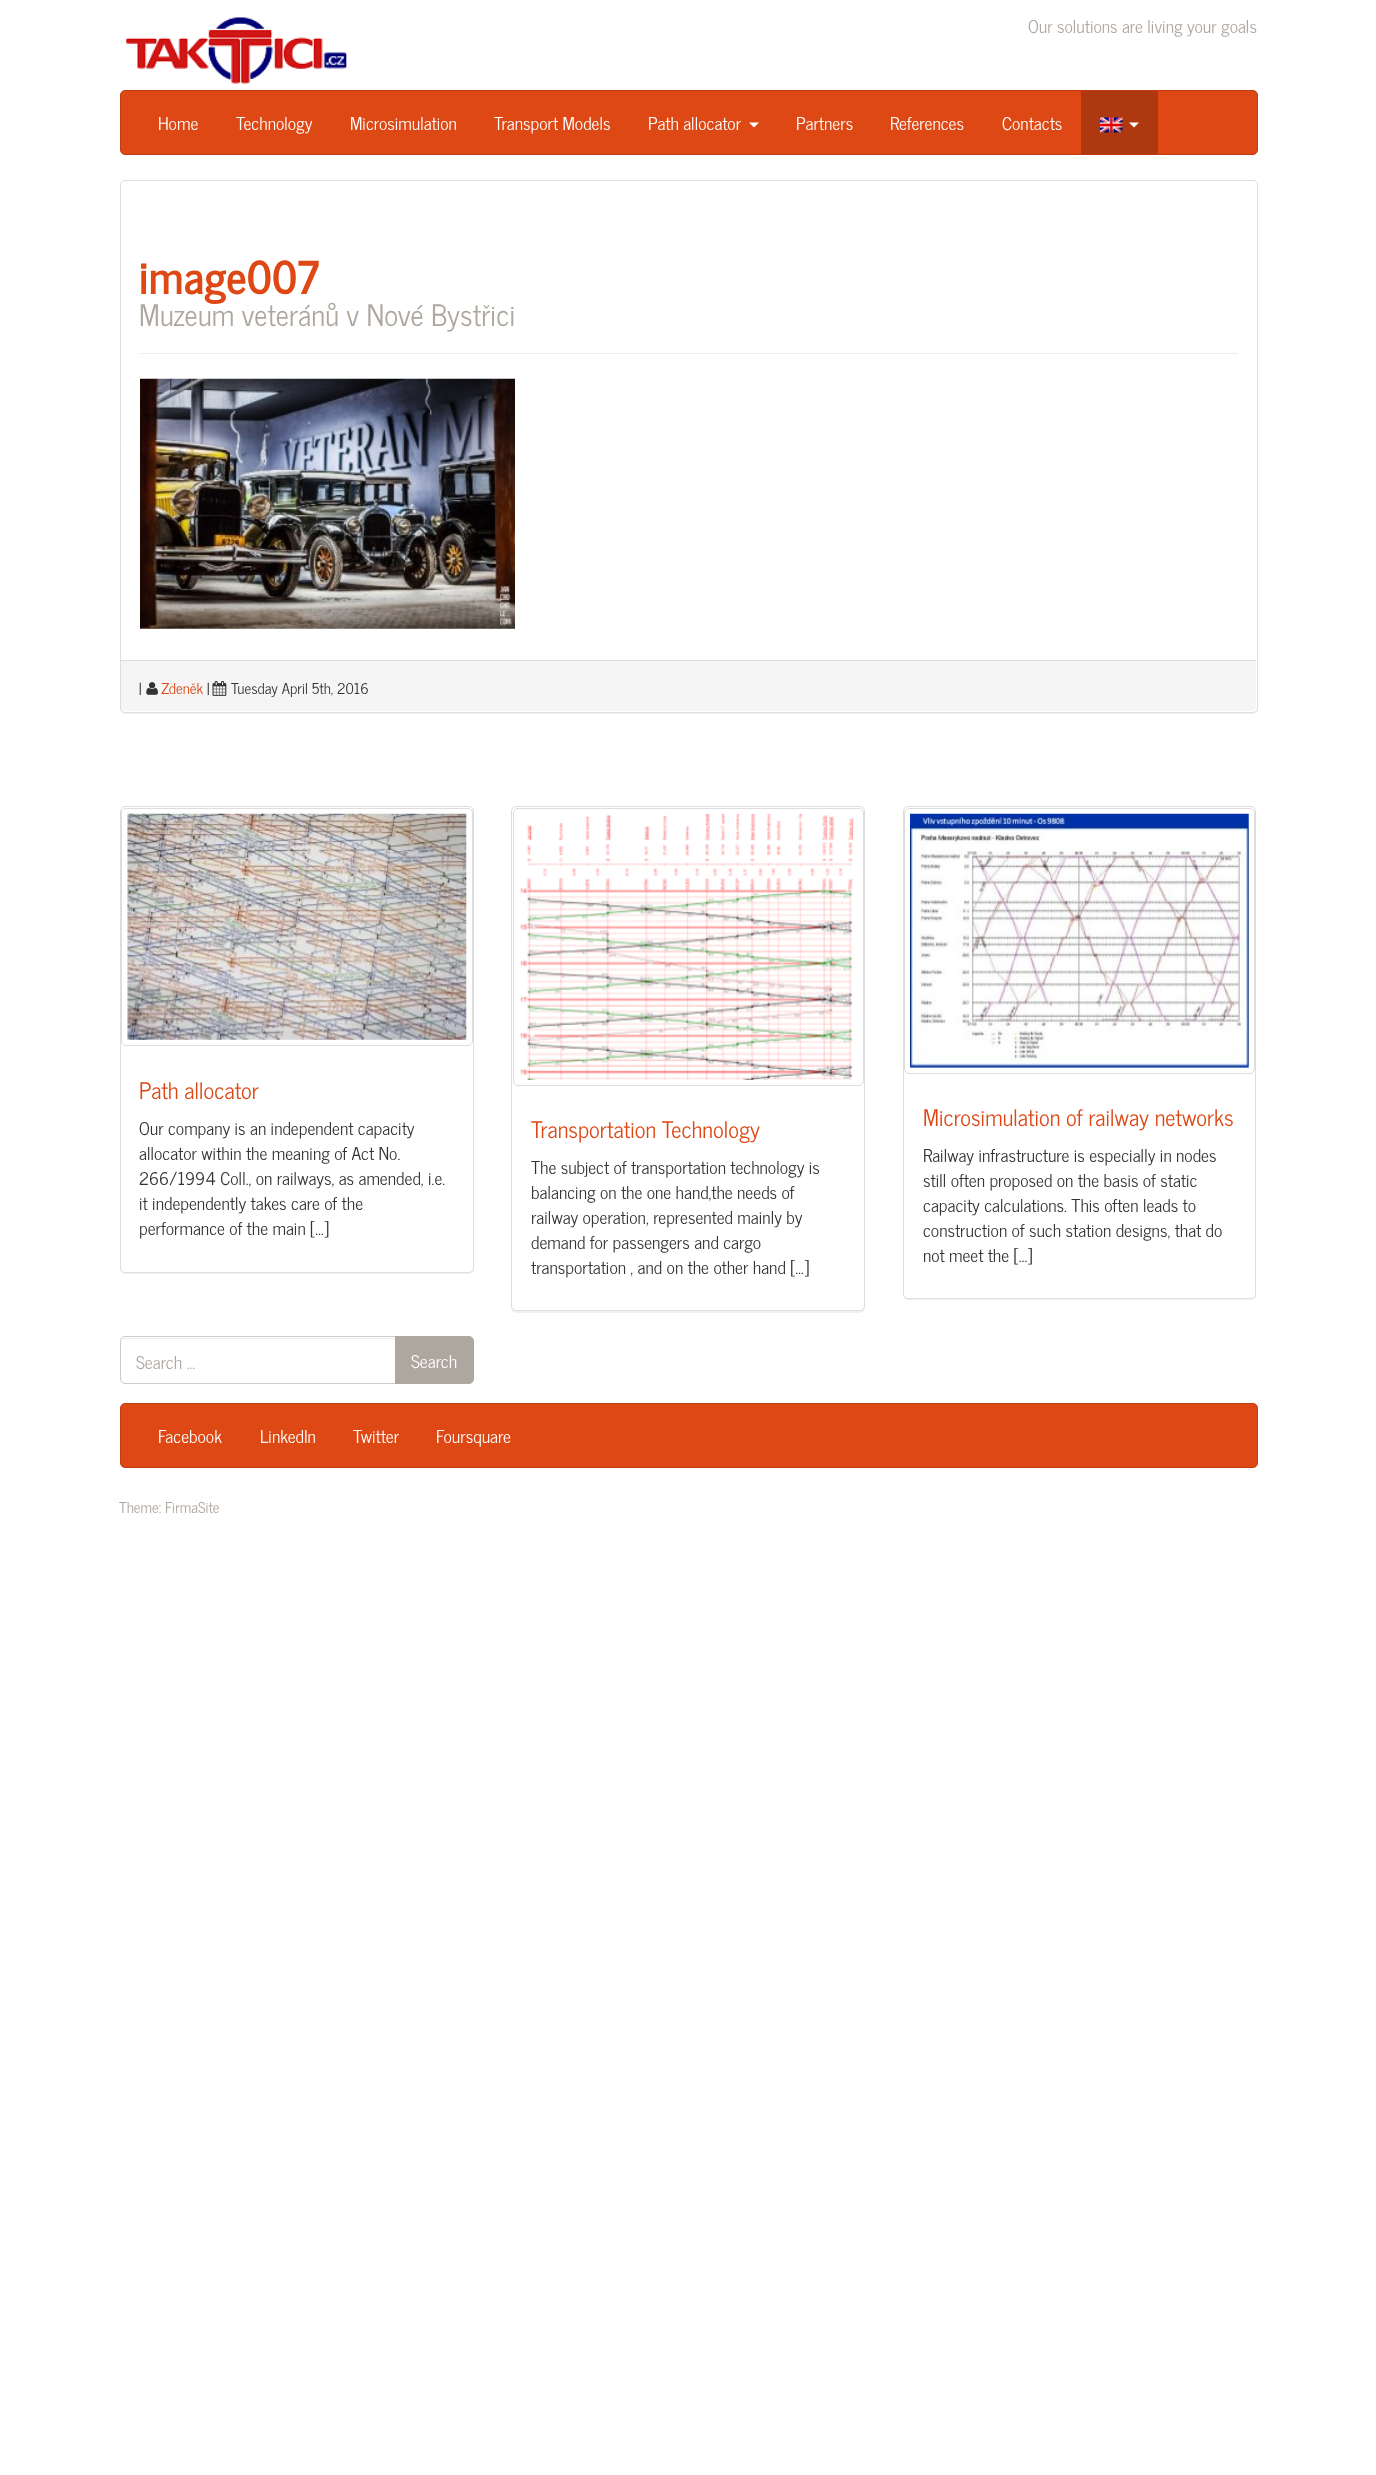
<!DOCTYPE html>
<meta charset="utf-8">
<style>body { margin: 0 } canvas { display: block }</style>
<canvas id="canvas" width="1376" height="2475"></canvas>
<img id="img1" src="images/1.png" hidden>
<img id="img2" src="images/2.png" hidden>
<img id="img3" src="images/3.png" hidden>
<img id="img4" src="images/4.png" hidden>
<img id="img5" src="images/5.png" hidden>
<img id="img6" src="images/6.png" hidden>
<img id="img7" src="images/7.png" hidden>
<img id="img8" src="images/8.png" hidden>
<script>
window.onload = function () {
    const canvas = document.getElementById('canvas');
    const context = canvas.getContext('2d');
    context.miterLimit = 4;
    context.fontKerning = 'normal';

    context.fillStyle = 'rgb(255, 255, 255)';
    context.fillRect(0, 0, 1376, 2475);
    context.drawImage(document.getElementById('img1'), 126, 17, 221, 67);
    context.fillStyle = 'rgb(221, 72, 20)';
    context.beginPath();
    context.roundRect(120.5, 90.5, 1137, 64, 4.5);
    context.fill();
    context.strokeStyle = 'rgb(191, 62, 17)';
    context.stroke();
    context.fillStyle = 'rgb(255, 255, 255)';
    context.beginPath();
    context.moveTo(749, 122.5);
    context.lineTo(759, 122.5);
    context.lineTo(754, 127.5);
    context.closePath();
    context.fill();
    context.fillStyle = 'rgb(174, 57, 16)';
    context.fillRect(1081, 91, 77, 63);
    context.drawImage(document.getElementById('img2'), 1100, 117, 23, 16);
    context.fillStyle = 'rgb(255, 255, 255)';
    context.beginPath();
    context.moveTo(1129, 122.5);
    context.lineTo(1139, 122.5);
    context.lineTo(1134, 127.5);
    context.closePath();
    context.fill();
    context.fillStyle = 'rgba(0, 0, 0, 0.05)';
    context.filter = 'blur(0.5px)';
    context.beginPath();
    context.roundRect(120, 181, 1138, 533, 5);
    context.fill();
    context.filter = 'none';
    context.fillStyle = 'rgb(255, 255, 255)';
    context.beginPath();
    context.roundRect(120.5, 180.5, 1137, 532, 4.5);
    context.fill();
    context.strokeStyle = 'rgb(221, 221, 221)';
    context.stroke();
    context.fillStyle = 'rgb(238, 238, 238)';
    context.fillRect(140, 353, 1098, 1);
    context.drawImage(document.getElementById('img3'), 140, 378, 375, 251);
    context.fillStyle = 'rgb(245, 245, 245)';
    context.beginPath();
    context.roundRect(121, 660, 1135, 51, [0, 0, 4, 4]);
    context.fill();
    context.fillStyle = 'rgb(221, 221, 221)';
    context.fillRect(121, 660, 1135, 1);
    context.drawImage(document.getElementById('img4'), 146, 682, 12, 13);
    context.drawImage(document.getElementById('img5'), 212, 681, 15, 15);
    context.fillStyle = 'rgba(0, 0, 0, 0.05)';
    context.filter = 'blur(0.5px)';
    context.beginPath();
    context.roundRect(120, 808, 354, 466, 5);
    context.fill();
    context.filter = 'none';
    context.fillStyle = 'rgb(255, 255, 255)';
    context.beginPath();
    context.roundRect(120.5, 806.5, 353, 466, 4.5);
    context.fill();
    context.stroke();
    context.beginPath();
    context.roundRect(121.5, 808.5, 351, 237, 4.5);
    context.stroke();
    context.drawImage(document.getElementById('img6'), 127, 813, 340, 227);
    context.fillStyle = 'rgba(0, 0, 0, 0.05)';
    context.filter = 'blur(0.5px)';
    context.beginPath();
    context.roundRect(511, 808, 354, 505, 5);
    context.fill();
    context.filter = 'none';
    context.fillStyle = 'rgb(255, 255, 255)';
    context.beginPath();
    context.roundRect(511.5, 806.5, 353, 504, 4.5);
    context.fill();
    context.stroke();
    context.beginPath();
    context.roundRect(513.5, 808.5, 350, 277, 4.5);
    context.stroke();
    context.drawImage(document.getElementById('img7'), 520, 813, 334, 267);
    context.fillStyle = 'rgba(0, 0, 0, 0.05)';
    context.filter = 'blur(0.5px)';
    context.beginPath();
    context.roundRect(903, 808, 353, 492, 5);
    context.fill();
    context.filter = 'none';
    context.fillStyle = 'rgb(255, 255, 255)';
    context.beginPath();
    context.roundRect(903.5, 806.5, 352, 492, 4.5);
    context.fill();
    context.stroke();
    context.beginPath();
    context.roundRect(904.5, 808.5, 350, 265, 4.5);
    context.stroke();
    context.drawImage(document.getElementById('img8'), 910, 813, 339, 255);
    context.fillStyle = 'rgb(236, 236, 236)';
    context.beginPath();
    context.moveTo(125, 1339);
    context.lineTo(395, 1339);
    context.lineTo(395, 1338);
    context.lineTo(125, 1338);
    context.bezierCurveTo(123, 1338, 121, 1340, 121, 1342);
    context.bezierCurveTo(121, 1340, 123, 1339, 125, 1339);
    context.closePath();
    context.fill();
    context.beginPath();
    context.roundRect(120.5, 1336.5, 275, 47, [4.5, 0, 0, 4.5]);
    context.strokeStyle = 'rgb(204, 204, 204)';
    context.stroke();
    context.fillStyle = 'rgb(174, 167, 159)';
    context.beginPath();
    context.roundRect(395.5, 1336.5, 78, 47, [0, 4.5, 4.5, 0]);
    context.fill();
    context.strokeStyle = 'rgb(174, 167, 159)';
    context.stroke();
    context.fillStyle = 'rgb(221, 72, 20)';
    context.beginPath();
    context.roundRect(120.5, 1403.5, 1137, 64, 4.5);
    context.fill();
    context.strokeStyle = 'rgb(191, 62, 17)';
    context.stroke();
    context.font = '17.5px News Cycle';
    context.fillStyle = 'rgb(174, 167, 159)';
    context.fillText('Our solutions are living your goals', 1028, 33);
    context.fillStyle = 'rgb(255, 255, 255)';
    context.fillText('Home', 158, 130);
    context.fillText('Technology', 236, 130);
    context.fillText('Microsimulation', 350, 130);
    context.fillText('Transport Models', 494, 130);
    context.fillText('Path allocator', 648, 130);
    context.fillText('Partners', 796, 130);
    context.fillText('References', 890, 130);
    context.fillText('Contacts', 1002, 130);
    context.font = 'bold 45px News Cycle';
    context.fillStyle = 'rgb(221, 72, 20)';
    context.fillText('image007', 139, 294);
    context.font = '29.25px News Cycle';
    context.fillStyle = 'rgb(174, 167, 159)';
    context.fillText('Muzeum veteránů v Nové Bystřici', 139, 326);
    context.font = '14.9px News Cycle';
    context.fillStyle = 'rgb(51, 51, 51)';
    context.fillText('|', 139, 694);
    context.fillStyle = 'rgb(221, 72, 20)';
    context.fillText('Zdeněk', 161, 694);
    context.fillStyle = 'rgb(51, 51, 51)';
    context.fillText('|', 207, 694);
    context.fillText('Tuesday April 5th, 2016', 231, 694);
    context.font = '22.5px News Cycle';
    context.fillStyle = 'rgb(221, 72, 20)';
    context.fillText('Path allocator', 139, 1099);
    context.font = '17.5px News Cycle';
    context.fillStyle = 'rgb(51, 51, 51)';
    context.fillText('Our company is an independent capacity', 139, 1135);
    context.fillText('allocator within the meaning of Act No.', 139, 1160);
    context.fillText('266/1994 Coll., on railways, as amended, i.e.', 139, 1185);
    context.fillText('it independently takes care of the', 139, 1210);
    context.fillText('performance of the main […]', 139, 1235);
    context.font = '22.5px News Cycle';
    context.fillStyle = 'rgb(221, 72, 20)';
    context.fillText('Transportation Technology', 531, 1138);
    context.font = '17.5px News Cycle';
    context.fillStyle = 'rgb(51, 51, 51)';
    context.fillText('The subject of transportation technology is', 531, 1174);
    context.fillText('balancing on the one hand,the needs of', 531, 1199);
    context.fillText('railway operation, represented mainly by', 531, 1224);
    context.fillText('demand for passengers and cargo', 531, 1249);
    context.fillText('transportation , and on the other hand […]', 531, 1274);
    context.font = '22.5px News Cycle';
    context.fillStyle = 'rgb(221, 72, 20)';
    context.fillText('Microsimulation of railway networks', 923, 1126);
    context.font = '17.5px News Cycle';
    context.fillStyle = 'rgb(51, 51, 51)';
    context.fillText('Railway infrastructure is especially in nodes', 923, 1162);
    context.fillText('still often proposed on the basis of static', 923, 1187);
    context.fillText('capacity calculations. This often leads to', 923, 1212);
    context.fillText('construction of such station designs, that do', 923, 1237);
    context.fillText('not meet the […]', 923, 1262);
    context.fillStyle = 'rgb(174, 167, 159)';
    context.fillText('Search …', 136, 1369);
    context.fillStyle = 'rgb(255, 255, 255)';
    context.fillText('Search', 411, 1368);
    context.fillText('Facebook', 158, 1443);
    context.fillText('LinkedIn', 260, 1443);
    context.fillText('Twitter', 353, 1443);
    context.fillText('Foursquare', 436, 1443);
    context.font = '14.9px News Cycle';
    context.fillStyle = 'rgb(174, 167, 159)';
    context.fillText('Theme: FirmaSite', 119, 1513);
};
</script>
